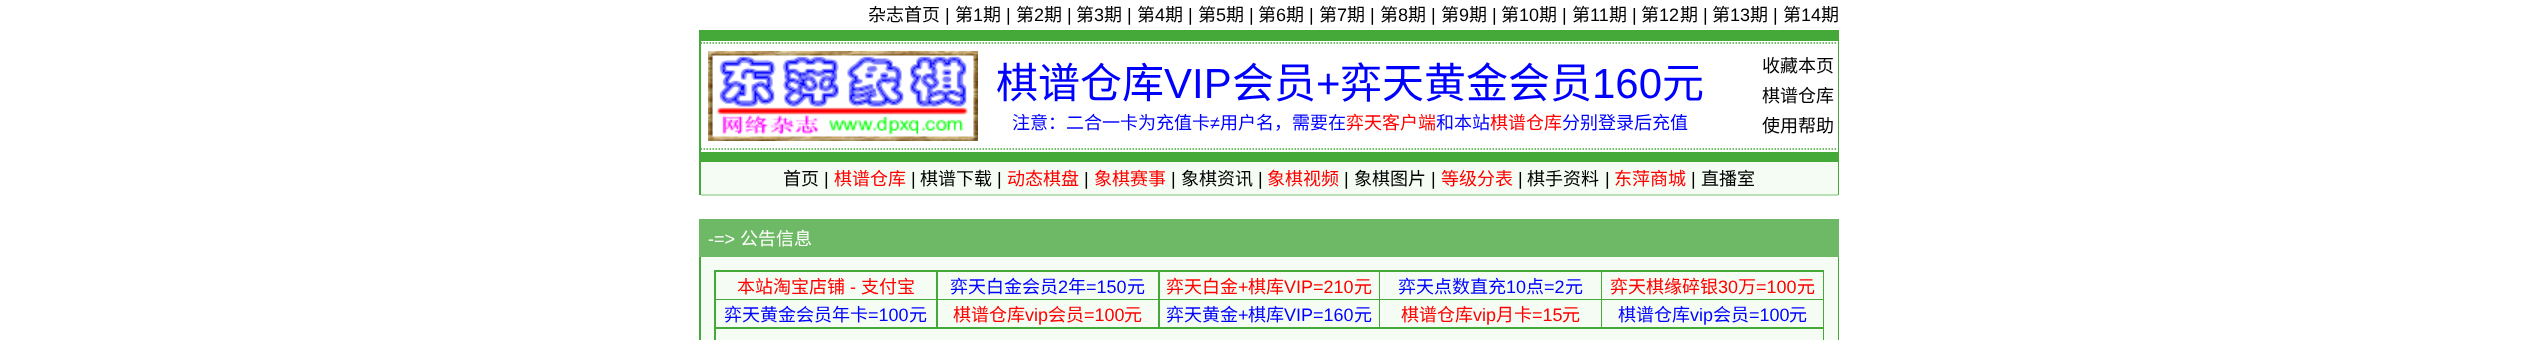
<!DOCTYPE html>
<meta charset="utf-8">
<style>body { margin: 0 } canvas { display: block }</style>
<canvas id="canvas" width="2538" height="340"></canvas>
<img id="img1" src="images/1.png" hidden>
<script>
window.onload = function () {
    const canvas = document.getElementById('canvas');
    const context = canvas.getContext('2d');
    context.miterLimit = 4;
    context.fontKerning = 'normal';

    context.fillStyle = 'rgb(255, 255, 255)';
    context.fillRect(0, 0, 2538, 340);
    context.fillStyle = 'rgb(68, 169, 56)';
    context.fillRect(699, 30, 1140, 165);
    context.fillStyle = 'rgb(255, 255, 255)';
    context.fillRect(701, 41, 1137, 111);
    context.drawImage(document.getElementById('img1'), 708, 51, 270, 90);
    context.beginPath();
    context.moveTo(700.5, 43);
    context.lineTo(1837.5, 43);
    context.strokeStyle = 'rgb(68, 169, 56)';
    context.lineWidth = 1.5;
    context.setLineDash([1.5, 1.5]);
    context.stroke();
    context.beginPath();
    context.moveTo(700.5, 149);
    context.lineTo(1837.5, 149);
    context.stroke();
    context.fillStyle = 'rgb(244, 252, 243)';
    context.fillRect(701, 162, 1137, 32);
    context.fillStyle = 'rgb(185, 223, 180)';
    context.fillRect(701, 194, 1137, 2);
    context.fillStyle = 'rgb(68, 169, 56)';
    context.fillRect(699, 257, 1140, 83);
    context.fillStyle = 'rgb(110, 185, 102)';
    context.fillRect(699, 219, 1140, 38);
    context.fillStyle = 'rgb(244, 252, 243)';
    context.fillRect(701, 257, 1137, 83);
    context.fillStyle = 'rgb(68, 169, 56)';
    context.fillRect(714, 270, 1110, 70);
    context.fillStyle = 'rgb(244, 252, 243)';
    context.fillRect(716, 272, 220, 27);
    context.fillRect(938, 272, 220, 27);
    context.fillRect(1160, 272, 219, 27);
    context.fillRect(1380, 272, 221, 27);
    context.fillRect(1602, 272, 221, 27);
    context.fillRect(716, 300, 220, 27);
    context.fillRect(938, 300, 220, 27);
    context.fillRect(1160, 300, 219, 27);
    context.fillRect(1380, 300, 221, 27);
    context.fillRect(1602, 300, 221, 27);
    context.fillRect(716, 329, 1107, 11);
    context.font = '18px Noto Sans CJK SC';
    context.fillStyle = 'rgb(0, 0, 0)';
    context.fillText('杂志首页', 868, 21);
    context.font = '18px Liberation Sans';
    context.fillText('|', 945, 21);
    context.font = '18px Noto Sans CJK SC';
    context.fillText('第', 955, 21);
    context.font = '18px Liberation Sans';
    context.fillText('1', 973, 21);
    context.font = '18px Noto Sans CJK SC';
    context.fillText('期', 983, 21);
    context.font = '18px Liberation Sans';
    context.fillText('|', 1006, 21);
    context.font = '18px Noto Sans CJK SC';
    context.fillText('第', 1016, 21);
    context.font = '18px Liberation Sans';
    context.fillText('2', 1034, 21);
    context.font = '18px Noto Sans CJK SC';
    context.fillText('期', 1044, 21);
    context.font = '18px Liberation Sans';
    context.fillText('|', 1067, 21);
    context.font = '18px Noto Sans CJK SC';
    context.fillText('第', 1076, 21);
    context.font = '18px Liberation Sans';
    context.fillText('3', 1094, 21);
    context.font = '18px Noto Sans CJK SC';
    context.fillText('期', 1104, 21);
    context.font = '18px Liberation Sans';
    context.fillText('|', 1127, 21);
    context.font = '18px Noto Sans CJK SC';
    context.fillText('第', 1137, 21);
    context.font = '18px Liberation Sans';
    context.fillText('4', 1155, 21);
    context.font = '18px Noto Sans CJK SC';
    context.fillText('期', 1165, 21);
    context.font = '18px Liberation Sans';
    context.fillText('|', 1188, 21);
    context.font = '18px Noto Sans CJK SC';
    context.fillText('第', 1198, 21);
    context.font = '18px Liberation Sans';
    context.fillText('5', 1216, 21);
    context.font = '18px Noto Sans CJK SC';
    context.fillText('期', 1226, 21);
    context.font = '18px Liberation Sans';
    context.fillText('|', 1249, 21);
    context.font = '18px Noto Sans CJK SC';
    context.fillText('第', 1258, 21);
    context.font = '18px Liberation Sans';
    context.fillText('6', 1276, 21);
    context.font = '18px Noto Sans CJK SC';
    context.fillText('期', 1286, 21);
    context.font = '18px Liberation Sans';
    context.fillText('|', 1309, 21);
    context.font = '18px Noto Sans CJK SC';
    context.fillText('第', 1319, 21);
    context.font = '18px Liberation Sans';
    context.fillText('7', 1337, 21);
    context.font = '18px Noto Sans CJK SC';
    context.fillText('期', 1347, 21);
    context.font = '18px Liberation Sans';
    context.fillText('|', 1370, 21);
    context.font = '18px Noto Sans CJK SC';
    context.fillText('第', 1380, 21);
    context.font = '18px Liberation Sans';
    context.fillText('8', 1398, 21);
    context.font = '18px Noto Sans CJK SC';
    context.fillText('期', 1408, 21);
    context.font = '18px Liberation Sans';
    context.fillText('|', 1431, 21);
    context.font = '18px Noto Sans CJK SC';
    context.fillText('第', 1441, 21);
    context.font = '18px Liberation Sans';
    context.fillText('9', 1459, 21);
    context.font = '18px Noto Sans CJK SC';
    context.fillText('期', 1469, 21);
    context.font = '18px Liberation Sans';
    context.fillText('|', 1492, 21);
    context.font = '18px Noto Sans CJK SC';
    context.fillText('第', 1501, 21);
    context.font = '18px Liberation Sans';
    context.fillText('10', 1519, 21);
    context.font = '18px Noto Sans CJK SC';
    context.fillText('期', 1539, 21);
    context.font = '18px Liberation Sans';
    context.fillText('|', 1562, 21);
    context.font = '18px Noto Sans CJK SC';
    context.fillText('第', 1572, 21);
    context.font = '18px Liberation Sans';
    context.fillText('11', 1590, 21);
    context.font = '18px Noto Sans CJK SC';
    context.fillText('期', 1609, 21);
    context.font = '18px Liberation Sans';
    context.fillText('|', 1632, 21);
    context.font = '18px Noto Sans CJK SC';
    context.fillText('第', 1641, 21);
    context.font = '18px Liberation Sans';
    context.fillText('12', 1659, 21);
    context.font = '18px Noto Sans CJK SC';
    context.fillText('期', 1680, 21);
    context.font = '18px Liberation Sans';
    context.fillText('|', 1703, 21);
    context.font = '18px Noto Sans CJK SC';
    context.fillText('第', 1712, 21);
    context.font = '18px Liberation Sans';
    context.fillText('13', 1730, 21);
    context.font = '18px Noto Sans CJK SC';
    context.fillText('期', 1750, 21);
    context.font = '18px Liberation Sans';
    context.fillText('|', 1773, 21);
    context.font = '18px Noto Sans CJK SC';
    context.fillText('第', 1783, 21);
    context.font = '18px Liberation Sans';
    context.fillText('14', 1801, 21);
    context.font = '18px Noto Sans CJK SC';
    context.fillText('期', 1821, 21);
    context.font = '42px Noto Sans CJK SC';
    context.fillStyle = 'rgb(0, 0, 255)';
    context.fillText('棋谱仓库', 996, 98);
    context.font = '42px Liberation Sans';
    context.fillText('VIP', 1164, 98);
    context.font = '42px Noto Sans CJK SC';
    context.fillText('会员', 1232, 98);
    context.font = '42px Liberation Sans';
    context.fillText('+', 1316, 98);
    context.font = '42px Noto Sans CJK SC';
    context.fillText('弈天黄金会员', 1340, 98);
    context.font = '42px Liberation Sans';
    context.fillText('160', 1592, 98);
    context.font = '42px Noto Sans CJK SC';
    context.fillText('元', 1662, 98);
    context.font = '18px Noto Sans CJK SC';
    context.fillText('注意：二合一卡为充值卡', 1012, 129);
    context.font = '18px Liberation Sans';
    context.fillText('≠', 1210, 129);
    context.font = '18px Noto Sans CJK SC';
    context.fillText('用户名，需要在', 1220, 129);
    context.fillStyle = 'rgb(255, 0, 0)';
    context.fillText('弈天客户端', 1346, 129);
    context.fillStyle = 'rgb(0, 0, 255)';
    context.fillText('和本站', 1436, 129);
    context.fillStyle = 'rgb(255, 0, 0)';
    context.fillText('棋谱仓库', 1490, 129);
    context.fillStyle = 'rgb(0, 0, 255)';
    context.fillText('分别登录后充值', 1562, 129);
    context.fillStyle = 'rgb(0, 0, 0)';
    context.fillText('收藏本页', 1762, 72);
    context.fillText('棋谱仓库', 1762, 102);
    context.fillText('使用帮助', 1762, 132);
    context.fillText('首页', 783, 185);
    context.font = '18px Liberation Sans';
    context.fillText('|', 824, 185);
    context.font = '18px Noto Sans CJK SC';
    context.fillStyle = 'rgb(255, 0, 0)';
    context.fillText('棋谱仓库', 834, 185);
    context.font = '18px Liberation Sans';
    context.fillStyle = 'rgb(0, 0, 0)';
    context.fillText('|', 911, 185);
    context.font = '18px Noto Sans CJK SC';
    context.fillText('棋谱下载', 920, 185);
    context.font = '18px Liberation Sans';
    context.fillText('|', 997, 185);
    context.font = '18px Noto Sans CJK SC';
    context.fillStyle = 'rgb(255, 0, 0)';
    context.fillText('动态棋盘', 1007, 185);
    context.font = '18px Liberation Sans';
    context.fillStyle = 'rgb(0, 0, 0)';
    context.fillText('|', 1084, 185);
    context.font = '18px Noto Sans CJK SC';
    context.fillStyle = 'rgb(255, 0, 0)';
    context.fillText('象棋赛事', 1094, 185);
    context.font = '18px Liberation Sans';
    context.fillStyle = 'rgb(0, 0, 0)';
    context.fillText('|', 1171, 185);
    context.font = '18px Noto Sans CJK SC';
    context.fillText('象棋资讯', 1181, 185);
    context.font = '18px Liberation Sans';
    context.fillText('|', 1258, 185);
    context.font = '18px Noto Sans CJK SC';
    context.fillStyle = 'rgb(255, 0, 0)';
    context.fillText('象棋视频', 1267, 185);
    context.font = '18px Liberation Sans';
    context.fillStyle = 'rgb(0, 0, 0)';
    context.fillText('|', 1344, 185);
    context.font = '18px Noto Sans CJK SC';
    context.fillText('象棋图片', 1354, 185);
    context.font = '18px Liberation Sans';
    context.fillText('|', 1431, 185);
    context.font = '18px Noto Sans CJK SC';
    context.fillStyle = 'rgb(255, 0, 0)';
    context.fillText('等级分表', 1441, 185);
    context.font = '18px Liberation Sans';
    context.fillStyle = 'rgb(0, 0, 0)';
    context.fillText('|', 1518, 185);
    context.font = '18px Noto Sans CJK SC';
    context.fillText('棋手资料', 1527, 185);
    context.font = '18px Liberation Sans';
    context.fillText('|', 1605, 185);
    context.font = '18px Noto Sans CJK SC';
    context.fillStyle = 'rgb(255, 0, 0)';
    context.fillText('东萍商城', 1614, 185);
    context.font = '18px Liberation Sans';
    context.fillStyle = 'rgb(0, 0, 0)';
    context.fillText('|', 1691, 185);
    context.font = '18px Noto Sans CJK SC';
    context.fillText('直播室', 1701, 185);
    context.font = '18px Liberation Sans';
    context.fillStyle = 'rgb(255, 255, 254)';
    context.fillText('-=>', 708, 245);
    context.font = '18px Noto Sans CJK SC';
    context.fillText('公告信息', 740, 245);
    context.fillStyle = 'rgb(255, 0, 0)';
    context.fillText('本站淘宝店铺', 737, 293);
    context.font = '18px Liberation Sans';
    context.fillText('-', 850, 293);
    context.font = '18px Noto Sans CJK SC';
    context.fillText('支付宝', 861, 293);
    context.fillStyle = 'rgb(0, 0, 255)';
    context.fillText('弈天白金会员', 950, 293);
    context.font = '18px Liberation Sans';
    context.fillText('2', 1058, 293);
    context.font = '18px Noto Sans CJK SC';
    context.fillText('年', 1068, 293);
    context.font = '18px Liberation Sans';
    context.fillText('=150', 1086, 293);
    context.font = '18px Noto Sans CJK SC';
    context.fillText('元', 1127, 293);
    context.fillStyle = 'rgb(255, 0, 0)';
    context.fillText('弈天白金', 1166, 293);
    context.font = '18px Liberation Sans';
    context.fillText('+', 1238, 293);
    context.font = '18px Noto Sans CJK SC';
    context.fillText('棋库', 1248, 293);
    context.font = '18px Liberation Sans';
    context.fillText('VIP=210', 1284, 293);
    context.font = '18px Noto Sans CJK SC';
    context.fillText('元', 1354, 293);
    context.fillStyle = 'rgb(0, 0, 255)';
    context.fillText('弈天点数直充', 1398, 293);
    context.font = '18px Liberation Sans';
    context.fillText('10', 1506, 293);
    context.font = '18px Noto Sans CJK SC';
    context.fillText('点', 1526, 293);
    context.font = '18px Liberation Sans';
    context.fillText('=2', 1544, 293);
    context.font = '18px Noto Sans CJK SC';
    context.fillText('元', 1565, 293);
    context.fillStyle = 'rgb(255, 0, 0)';
    context.fillText('弈天棋缘碎银', 1610, 293);
    context.font = '18px Liberation Sans';
    context.fillText('30', 1718, 293);
    context.font = '18px Noto Sans CJK SC';
    context.fillText('万', 1738, 293);
    context.font = '18px Liberation Sans';
    context.fillText('=100', 1756, 293);
    context.font = '18px Noto Sans CJK SC';
    context.fillText('元', 1797, 293);
    context.fillStyle = 'rgb(0, 0, 255)';
    context.fillText('弈天黄金会员年卡', 724, 321);
    context.font = '18px Liberation Sans';
    context.fillText('=100', 868, 321);
    context.font = '18px Noto Sans CJK SC';
    context.fillText('元', 909, 321);
    context.fillStyle = 'rgb(255, 0, 0)';
    context.fillText('棋谱仓库', 953, 321);
    context.font = '18px Liberation Sans';
    context.fillText('vip', 1025, 321);
    context.font = '18px Noto Sans CJK SC';
    context.fillText('会员', 1048, 321);
    context.font = '18px Liberation Sans';
    context.fillText('=100', 1084, 321);
    context.font = '18px Noto Sans CJK SC';
    context.fillText('元', 1124, 321);
    context.fillStyle = 'rgb(0, 0, 255)';
    context.fillText('弈天黄金', 1166, 321);
    context.font = '18px Liberation Sans';
    context.fillText('+', 1238, 321);
    context.font = '18px Noto Sans CJK SC';
    context.fillText('棋库', 1248, 321);
    context.font = '18px Liberation Sans';
    context.fillText('VIP=160', 1284, 321);
    context.font = '18px Noto Sans CJK SC';
    context.fillText('元', 1354, 321);
    context.fillStyle = 'rgb(255, 0, 0)';
    context.fillText('棋谱仓库', 1401, 321);
    context.font = '18px Liberation Sans';
    context.fillText('vip', 1473, 321);
    context.font = '18px Noto Sans CJK SC';
    context.fillText('月卡', 1496, 321);
    context.font = '18px Liberation Sans';
    context.fillText('=15', 1532, 321);
    context.font = '18px Noto Sans CJK SC';
    context.fillText('元', 1562, 321);
    context.fillStyle = 'rgb(0, 0, 255)';
    context.fillText('棋谱仓库', 1618, 321);
    context.font = '18px Liberation Sans';
    context.fillText('vip', 1690, 321);
    context.font = '18px Noto Sans CJK SC';
    context.fillText('会员', 1713, 321);
    context.font = '18px Liberation Sans';
    context.fillText('=100', 1749, 321);
    context.font = '18px Noto Sans CJK SC';
    context.fillText('元', 1789, 321);
};
</script>
